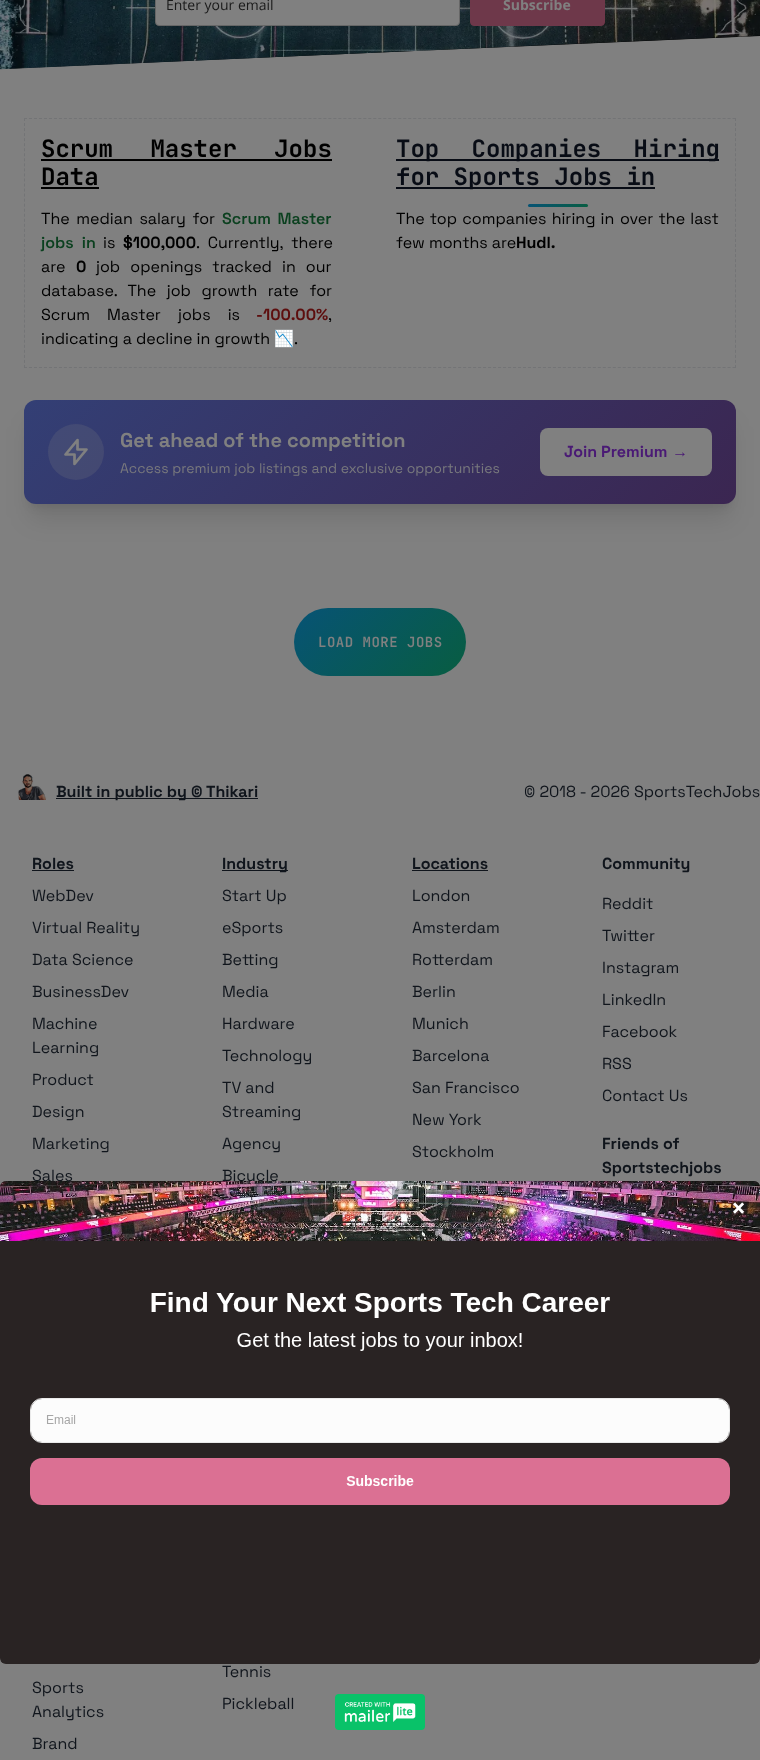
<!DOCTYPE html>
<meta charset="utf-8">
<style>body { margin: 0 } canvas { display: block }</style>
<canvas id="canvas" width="760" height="1760"></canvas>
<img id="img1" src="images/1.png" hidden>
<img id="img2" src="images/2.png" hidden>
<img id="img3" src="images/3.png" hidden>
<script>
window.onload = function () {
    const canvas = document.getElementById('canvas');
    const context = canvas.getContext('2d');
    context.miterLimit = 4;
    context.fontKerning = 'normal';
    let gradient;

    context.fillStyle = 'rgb(128, 128, 128)';
    context.fillRect(0, 0, 760, 1760);
    context.fillStyle = 'rgb(0, 0, 0)';
    context.beginPath();
    context.moveTo(0, -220);
    context.lineTo(0, 69);
    context.lineTo(760, 36);
    context.lineTo(760, -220);
    context.closePath();
    context.fill();
    context.drawImage(document.getElementById('img1'), 0, 0, 760, 70);
    context.fillStyle = 'rgb(128, 128, 128)';
    context.beginPath();
    context.roundRect(155.5, -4.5, 304, 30, 3.5);
    context.fill();
    context.strokeStyle = 'rgb(102, 102, 102)';
    context.stroke();
    context.fillStyle = 'rgb(110, 56, 74)';
    context.beginPath();
    context.roundRect(470.5, -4.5, 134, 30, 3.5);
    context.fill();
    context.strokeStyle = 'rgb(110, 56, 74)';
    context.stroke();
    context.beginPath();
    context.moveTo(24, 118.5);
    context.lineTo(736, 118.5);
    context.strokeStyle = 'rgb(115, 116, 118)';
    context.setLineDash([3, 1.99]);
    context.stroke();
    context.beginPath();
    context.moveTo(735.5, 118);
    context.lineTo(735.5, 368);
    context.setLineDash([3, 2.04]);
    context.stroke();
    context.beginPath();
    context.moveTo(24, 367.5);
    context.lineTo(736, 367.5);
    context.setLineDash([3, 1.99]);
    context.stroke();
    context.beginPath();
    context.moveTo(24.5, 118);
    context.lineTo(24.5, 368);
    context.setLineDash([3, 2.04]);
    context.stroke();
    context.fillStyle = 'rgb(0, 0, 0)';
    context.fillRect(41, 159, 291, 2);
    context.fillRect(41, 187, 58, 2);
    context.fillStyle = 'rgb(8, 12, 21)';
    context.fillRect(396, 159, 323, 2);
    context.fillRect(396, 187, 259, 2);
    gradient = context.createLinearGradient(542, 190, 574, 221);
    gradient.addColorStop(0, 'rgb(7, 83, 117)');
    gradient.addColorStop(1, 'rgb(8, 93, 65)');
    context.fillStyle = gradient;
    context.beginPath();
    context.roundRect(528, 204, 60, 3, 1.5);
    context.fill();
    context.fillStyle = 'rgba(0, 0, 0, 0.1)';
    context.filter = 'blur(5px)';
    context.beginPath();
    context.roundRect(30, 414, 700, 92, 6);
    context.fill();
    context.filter = 'none';
    context.filter = 'blur(12.5px)';
    context.beginPath();
    context.roundRect(29, 425, 702, 94, 7);
    context.fill();
    context.filter = 'none';
    gradient = context.createLinearGradient(176, 248, 584, 656);
    gradient.addColorStop(0, 'rgb(51, 63, 117)');
    gradient.addColorStop(1, 'rgb(59, 38, 81)');
    context.fillStyle = gradient;
    context.beginPath();
    context.roundRect(24, 400, 712, 104, 12);
    context.fill();
    context.fillStyle = 'rgba(128, 128, 128, 0.2)';
    context.beginPath();
    context.arc(76, 452, 28, 0, 2 * Math.PI);
    context.fill();
    context.beginPath();
    context.moveTo(77.5, 449.5);
    context.lineTo(77.5, 440);
    context.lineTo(65.5, 454.5);
    context.lineTo(74.5, 454.5);
    context.lineTo(74.5, 464);
    context.lineTo(86.5, 449.5);
    context.closePath();
    context.strokeStyle = 'rgb(128, 128, 128)';
    context.lineWidth = 2.7;
    context.lineCap = 'round';
    context.lineJoin = 'round';
    context.setLineDash([]);
    context.stroke();
    context.fillStyle = 'rgb(128, 128, 128)';
    context.beginPath();
    context.roundRect(540, 428, 172, 48, 8);
    context.fill();
    gradient = context.createLinearGradient(320, 582, 440, 702);
    gradient.addColorStop(0, 'rgb(7, 83, 117)');
    gradient.addColorStop(1, 'rgb(8, 93, 65)');
    context.fillStyle = gradient;
    context.beginPath();
    context.roundRect(294, 608, 172, 68, 34);
    context.fill();
    context.drawImage(document.getElementById('img2'), 18, 774, 29, 26);
    context.fillStyle = 'rgb(16, 21, 28)';
    context.fillRect(56, 798, 202, 1);
    context.fillRect(32, 870, 42, 1);
    context.fillRect(222, 870, 66, 1);
    context.fillRect(412, 870, 76, 1);
    context.font = '14px Open Sans';
    context.fillStyle = 'rgb(26, 26, 26)';
    context.fillText('Enter your email', 166, 10);
    context.font = 'bold 14px Open Sans';
    context.fillStyle = 'rgb(128, 128, 128)';
    context.fillText('Subscribe', 503, 10);
    context.wordSpacing = '23px';
    context.font = 'bold 24px JetBrains Mono';
    context.fillStyle = 'rgb(0, 0, 0)';
    context.fillText('Scrum Master Jobs', 41, 157);
    context.wordSpacing = '0px';
    context.fillText('Data', 41, 185);
    context.wordSpacing = '2.5px';
    context.font = '16px Space Grotesk';
    context.fillText('The median salary for', 41, 224);
    context.font = '600 16px Space Grotesk';
    context.fillStyle = 'rgb(11, 64, 31)';
    context.fillText('Scrum Master', 222, 224);
    context.wordSpacing = '4px';
    context.fillText('jobs in', 41, 248);
    context.wordSpacing = '0px';
    context.font = '16px Space Grotesk';
    context.fillStyle = 'rgb(0, 0, 0)';
    context.fillText('is', 103, 248);
    context.font = 'bold 16px Space Grotesk';
    context.fillText('$100,000', 123, 248);
    context.wordSpacing = '4px';
    context.font = '16px Space Grotesk';
    context.fillText('. Currently, there', 196, 248);
    context.wordSpacing = '0px';
    context.fillText('are', 41, 272);
    context.font = 'bold 16px Space Grotesk';
    context.fillText('0', 76, 272);
    context.wordSpacing = '6px';
    context.font = '16px Space Grotesk';
    context.fillText('job openings tracked in our', 96, 272);
    context.wordSpacing = '6.5px';
    context.fillText('database. The job growth rate for', 41, 296);
    context.wordSpacing = '13px';
    context.fillText('Scrum Master jobs is', 41, 320);
    context.wordSpacing = '0px';
    context.font = 'bold 16px Space Grotesk';
    context.fillStyle = 'rgb(93, 14, 14)';
    context.fillText('-100.00%', 256, 320);
    context.font = '16px Space Grotesk';
    context.fillStyle = 'rgb(0, 0, 0)';
    context.fillText(',', 328, 320);
    context.fillText('indicating a decline in growth', 41, 344);
    context.font = '16px Noto Color Emoji';
    context.fillText('📉', 274, 344);
    context.font = '16px Space Grotesk';
    context.fillText('.', 294, 344);
    context.wordSpacing = '18px';
    context.font = 'bold 24px JetBrains Mono';
    context.fillStyle = 'rgb(8, 12, 21)';
    context.fillText('Top Companies Hiring', 396, 157);
    context.wordSpacing = '0px';
    context.fillText('for Sports Jobs in', 396, 185);
    context.wordSpacing = '1px';
    context.font = '16px Space Grotesk';
    context.fillStyle = 'rgb(0, 0, 0)';
    context.fillText('The top companies hiring in', 396, 224);
    context.fillText('over the last', 620, 224);
    context.wordSpacing = '0px';
    context.fillText('few months are', 396, 248);
    context.font = 'bold 16px Space Grotesk';
    context.fillText('Hudl.', 516, 248);
    context.font = 'bold 20px Space Grotesk';
    context.fillStyle = 'rgb(128, 128, 128)';
    context.fillText('Get ahead of the competition', 120, 447);
    context.font = '14px Space Grotesk';
    context.fillStyle = 'rgb(120, 120, 125)';
    context.fillText('Access premium job listings and exclusive opportunities', 120, 473);
    context.font = 'bold 16px Space Grotesk';
    context.fillStyle = 'rgb(74, 26, 117)';
    context.fillText('Join Premium', 564, 457);
    context.font = 'bold 16px Liberation Sans';
    context.fillText('→', 672, 457);
    context.letterSpacing = '0.5px';
    context.font = '600 14px JetBrains Mono';
    context.fillStyle = 'rgb(128, 128, 128)';
    context.fillText('LOAD MORE JOBS', 318, 647);
    context.letterSpacing = '0px';
    context.font = 'bold 16px Space Grotesk';
    context.fillStyle = 'rgb(16, 21, 28)';
    context.fillText('Built in public by © Thikari', 56, 797);
    context.font = '16px Space Grotesk';
    context.fillText('© 2018 - 2026 SportsTechJobs', 524, 797);
    context.font = 'bold 16px Space Grotesk';
    context.fillText('Roles', 32, 869);
    context.font = '16px Space Grotesk';
    context.fillText('WebDev', 32, 901);
    context.fillText('Virtual Reality', 32, 933);
    context.fillText('Data Science', 32, 965);
    context.fillText('BusinessDev', 32, 997);
    context.fillText('Machine', 32, 1029);
    context.fillText('Learning', 32, 1053);
    context.fillText('Product', 32, 1085);
    context.fillText('Design', 32, 1117);
    context.fillText('Marketing', 32, 1149);
    context.fillText('Sales', 32, 1181);
    context.fillText('Sports', 32, 1693);
    context.fillText('Analytics', 32, 1717);
    context.fillText('Brand', 32, 1749);
    context.font = 'bold 16px Space Grotesk';
    context.fillText('Industry', 222, 869);
    context.font = '16px Space Grotesk';
    context.fillText('Start Up', 222, 901);
    context.fillText('eSports', 222, 933);
    context.fillText('Betting', 222, 965);
    context.fillText('Media', 222, 997);
    context.fillText('Hardware', 222, 1029);
    context.fillText('Technology', 222, 1061);
    context.fillText('TV and', 222, 1093);
    context.fillText('Streaming', 222, 1117);
    context.fillText('Agency', 222, 1149);
    context.fillText('Bicycle', 222, 1181);
    context.fillText('Tennis', 222, 1677);
    context.fillText('Pickleball', 222, 1709);
    context.font = 'bold 16px Space Grotesk';
    context.fillText('Locations', 412, 869);
    context.font = '16px Space Grotesk';
    context.fillText('London', 412, 901);
    context.fillText('Amsterdam', 412, 933);
    context.fillText('Rotterdam', 412, 965);
    context.fillText('Berlin', 412, 997);
    context.fillText('Munich', 412, 1029);
    context.fillText('Barcelona', 412, 1061);
    context.fillText('San Francisco', 412, 1093);
    context.fillText('New York', 412, 1125);
    context.fillText('Stockholm', 412, 1157);
    context.font = 'bold 16px Space Grotesk';
    context.fillText('Community', 602, 869);
    context.font = '16px Space Grotesk';
    context.fillText('Reddit', 602, 909);
    context.fillText('Twitter', 602, 941);
    context.fillText('Instagram', 602, 973);
    context.fillText('LinkedIn', 602, 1005);
    context.fillText('Facebook', 602, 1037);
    context.fillText('RSS', 602, 1069);
    context.fillText('Contact Us', 602, 1101);
    context.font = 'bold 16px Space Grotesk';
    context.fillText('Friends of', 602, 1149);
    context.fillText('Sportstechjobs', 602, 1173);
    context.drawImage(document.getElementById('img3'), 0, 1181, 760, 549);
};
</script>
